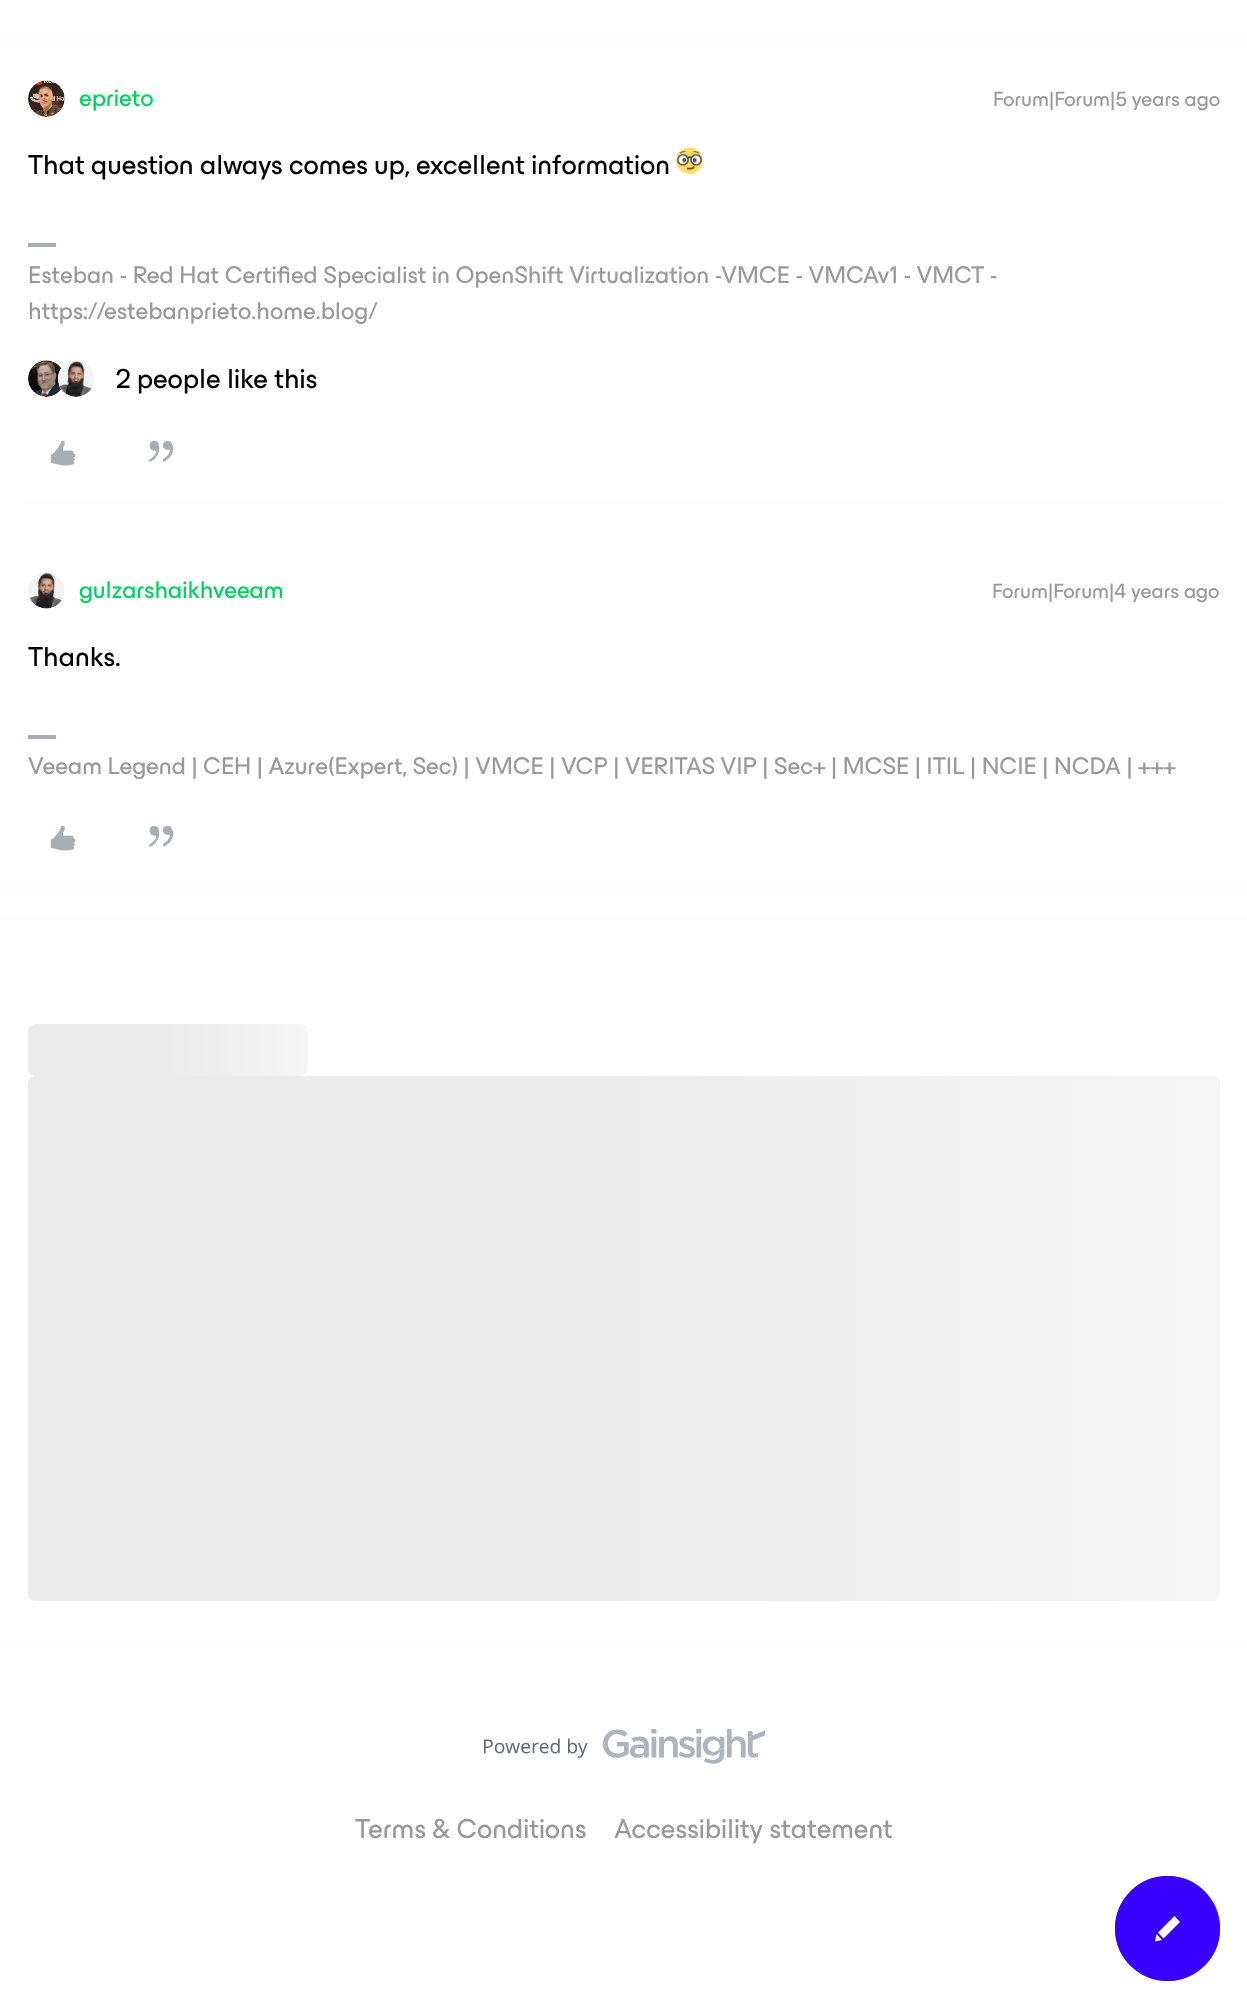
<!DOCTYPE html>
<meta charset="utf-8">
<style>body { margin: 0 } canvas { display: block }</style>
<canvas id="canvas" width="1247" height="2009"></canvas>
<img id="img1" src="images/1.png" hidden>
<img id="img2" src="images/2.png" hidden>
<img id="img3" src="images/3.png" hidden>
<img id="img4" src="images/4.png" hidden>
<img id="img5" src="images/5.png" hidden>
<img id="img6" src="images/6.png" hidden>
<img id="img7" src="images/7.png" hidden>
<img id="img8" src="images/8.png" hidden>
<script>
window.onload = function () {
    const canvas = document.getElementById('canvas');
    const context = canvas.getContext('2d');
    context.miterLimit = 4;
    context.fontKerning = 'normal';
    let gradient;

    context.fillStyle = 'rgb(255, 255, 255)';
    context.fillRect(0, 0, 1247, 2009);
    context.fillStyle = 'rgb(255, 251, 251)';
    context.fillRect(0, 887, 1247, 2);
    context.fillRect(0, 39, 1247, 2);
    context.drawImage(document.getElementById('img1'), 28, 80, 37, 37);
    context.drawImage(document.getElementById('img2'), 676, 147, 27, 27);
    context.fillStyle = 'rgb(167, 174, 181)';
    context.fillRect(28, 243, 28, 4);
    context.drawImage(document.getElementById('img3'), 28, 360, 34, 37);
    context.fillStyle = 'rgb(255, 255, 255)';
    context.beginPath();
    context.roundRect(58, 361, 37, 36, 18);
    context.fill();
    context.drawImage(document.getElementById('img4'), 58, 360, 36, 37);
    context.drawImage(document.getElementById('img5'), 50, 441, 26, 25);
    context.drawImage(document.getElementById('img6'), 148, 441, 26, 21);
    context.fillStyle = 'rgb(255, 251, 251)';
    context.fillRect(28, 501, 1192, 2);
    context.drawImage(document.getElementById('img7'), 28, 572, 37, 37);
    context.fillStyle = 'rgb(167, 174, 181)';
    context.fillRect(28, 735, 28, 4);
    context.drawImage(document.getElementById('img5'), 50, 826, 26, 25);
    context.drawImage(document.getElementById('img6'), 148, 826, 26, 21);
    context.fillStyle = 'rgb(255, 251, 251)';
    context.fillRect(0, 917, 1247, 2);
    context.fillRect(0, 1643, 1247, 2);
    gradient = context.createLinearGradient(28, 1050, 588, 1050);
    gradient.addColorStop(0.25, 'rgb(235, 235, 235)');
    gradient.addColorStop(0.5, 'rgb(245, 245, 245)');
    gradient.addColorStop(0.75, 'rgb(235, 235, 235)');
    context.fillStyle = gradient;
    context.beginPath();
    context.roundRect(28, 1024, 280, 52, 7);
    context.fill();
    gradient = context.createLinearGradient(28, 1339, 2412, 1339);
    gradient.addColorStop(0.25, 'rgb(235, 235, 235)');
    gradient.addColorStop(0.5, 'rgb(246, 246, 246)');
    gradient.addColorStop(0.75, 'rgb(235, 235, 235)');
    context.fillStyle = gradient;
    context.beginPath();
    context.roundRect(28, 1076, 1192, 525, 7);
    context.fill();
    context.drawImage(document.getElementById('img8'), 484, 1729, 281, 35);
    context.fillStyle = 'rgb(55, 0, 255)';
    context.beginPath();
    context.arc(1167.5, 1928.5, 52.5, 0, 2 * Math.PI);
    context.fill();
    context.fillStyle = 'rgb(255, 255, 255)';
    context.beginPath();
    context.moveTo(1174.5, 1916);
    context.lineTo(1158, 1932.5);
    context.lineTo(1163.5, 1938.5);
    context.lineTo(1180, 1922);
    context.closePath();
    context.fill();
    context.beginPath();
    context.moveTo(1155, 1941.5);
    context.lineTo(1156.5, 1934);
    context.lineTo(1162, 1940);
    context.closePath();
    context.fill();
    context.beginPath();
    context.arc(1167.5, 1928.5, 50.5, 0, 2 * Math.PI);
    context.strokeStyle = 'rgb(55, 0, 255)';
    context.lineWidth = 4;
    context.stroke();
    context.font = '24.5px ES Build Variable';
    context.fillStyle = 'rgb(0, 209, 95)';
    context.fillText('eprieto', 79, 106);
    context.font = '21px ES Build Variable';
    context.fillStyle = 'rgb(153, 153, 153)';
    context.fillText('Forum|Forum|5 years ago', 993, 106);
    context.font = '28px ES Build Variable';
    context.fillStyle = 'rgb(0, 0, 0)';
    context.fillText('That question always comes up, excellent information', 28, 174);
    context.font = '24.5px ES Build Variable';
    context.fillStyle = 'rgb(153, 153, 153)';
    context.fillText('Esteban - Red Hat Certified Specialist in OpenShift Virtualization -VMCE - VMCAv1 - VMCT -', 28, 283);
    context.fillText('https://estebanprieto.home.blog/', 28, 319);
    context.font = '28px ES Build Variable';
    context.fillStyle = 'rgb(0, 0, 0)';
    context.fillText('2 people like this', 116, 388);
    context.font = '24.5px ES Build Variable';
    context.fillStyle = 'rgb(0, 209, 95)';
    context.fillText('gulzarshaikhveeam', 79, 598);
    context.font = '21px ES Build Variable';
    context.fillStyle = 'rgb(153, 153, 153)';
    context.fillText('Forum|Forum|4 years ago', 992, 598);
    context.font = '28px ES Build Variable';
    context.fillStyle = 'rgb(0, 0, 0)';
    context.fillText('Thanks.', 28, 666);
    context.font = '24.5px ES Build Variable';
    context.fillStyle = 'rgb(153, 153, 153)';
    context.fillText('Veeam Legend | CEH | Azure(Expert, Sec) | VMCE | VCP | VERITAS VIP | Sec+ | MCSE | ITIL | NCIE | NCDA | +++', 28, 774);
    context.font = '28px ES Build Variable';
    context.fillText('Terms & Conditions', 355, 1838);
    context.fillText('Accessibility statement', 614, 1838);
};
</script>
